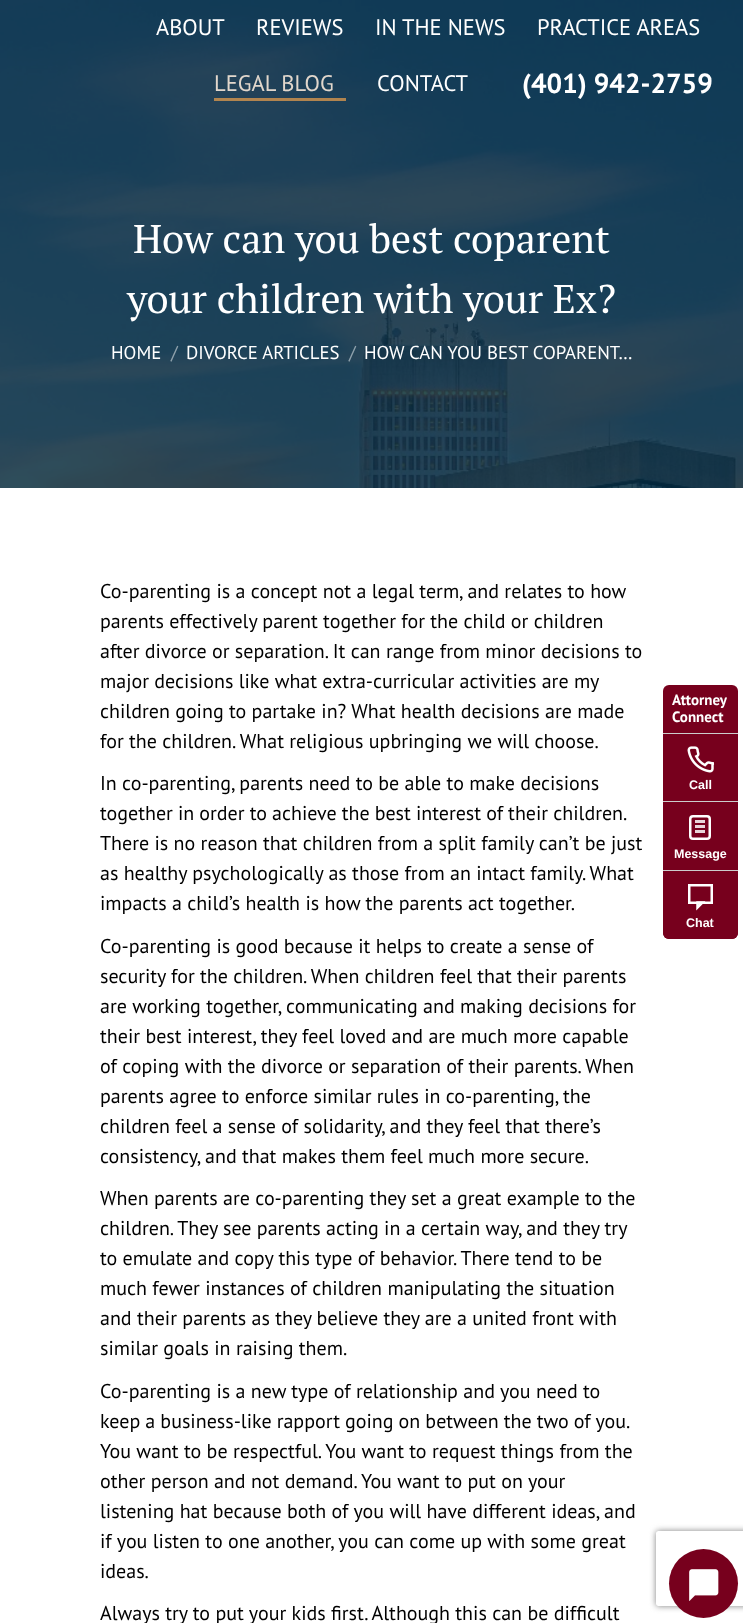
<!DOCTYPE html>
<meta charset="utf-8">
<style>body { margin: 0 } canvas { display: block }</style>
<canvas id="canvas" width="743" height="1623"></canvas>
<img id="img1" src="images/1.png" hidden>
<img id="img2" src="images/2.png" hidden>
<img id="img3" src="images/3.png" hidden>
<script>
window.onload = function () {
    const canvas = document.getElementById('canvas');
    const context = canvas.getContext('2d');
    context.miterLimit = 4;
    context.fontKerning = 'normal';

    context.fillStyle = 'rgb(255, 255, 255)';
    context.fillRect(0, 0, 743, 1623);
    context.drawImage(document.getElementById('img1'), 0, 0, 743, 488);
    context.fillStyle = 'rgba(203, 144, 77, 0.85)';
    context.fillRect(214, 98, 132, 3);
    context.fillStyle = 'rgb(119, 0, 29)';
    context.beginPath();
    context.roundRect(663, 685, 75, 254, 6);
    context.fill();
    context.fillStyle = 'rgb(204, 204, 204)';
    context.fillRect(663, 733, 75, 1);
    context.drawImage(document.getElementById('img2'), 687, 746, 28, 27);
    context.fillRect(663, 801, 75, 1);
    context.beginPath();
    context.roundRect(690.25, 816.25, 19.5, 22.5, 2.75);
    context.strokeStyle = 'rgb(255, 255, 255)';
    context.lineWidth = 2.5;
    context.stroke();
    context.fillStyle = 'rgb(232, 213, 217)';
    context.fillRect(695, 820, 10, 3);
    context.fillRect(695, 825, 10, 3);
    context.fillRect(695, 830, 10, 3);
    context.fillStyle = 'rgb(119, 0, 29)';
    context.beginPath();
    context.roundRect(663, 870, 75, 69, [0, 0, 6, 6]);
    context.fill();
    context.fillStyle = 'rgb(204, 204, 204)';
    context.fillRect(663, 870, 75, 1);
    context.strokeRect(689.25, 885.25, 22.5, 17.5);
    context.beginPath();
    context.moveTo(697.5, 902.5);
    context.lineTo(697.5, 907.5);
    context.lineTo(702.5, 902.5);
    context.closePath();
    context.stroke();
    context.save();
    context.beginPath();
    context.moveTo(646, 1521);
    context.lineTo(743, 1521);
    context.lineTo(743, 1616);
    context.lineTo(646, 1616);
    context.closePath();
    context.moveTo(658.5, 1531);
    context.lineTo(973.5, 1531);
    context.bezierCurveTo(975, 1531, 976, 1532, 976, 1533.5);
    context.lineTo(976, 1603.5);
    context.bezierCurveTo(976, 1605, 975, 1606, 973.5, 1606);
    context.lineTo(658.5, 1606);
    context.bezierCurveTo(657, 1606, 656, 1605, 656, 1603.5);
    context.lineTo(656, 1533.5);
    context.bezierCurveTo(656, 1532, 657, 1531, 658.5, 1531);
    context.closePath();
    context.clip('evenodd');
    context.fillStyle = 'rgb(128, 128, 128)';
    context.filter = 'blur(3px)';
    context.beginPath();
    context.roundRect(656, 1531, 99, 75, 2.5);
    context.fill();
    context.filter = 'none';
    context.restore();
    context.fillStyle = 'rgb(119, 0, 29)';
    context.beginPath();
    context.arc(703.5, 1583.5, 34.5, 0, 2 * Math.PI);
    context.fill();
    context.drawImage(document.getElementById('img3'), 689, 1569, 30, 32);
    context.font = '22.5px PT Sans';
    context.fillStyle = 'rgb(255, 255, 255)';
    context.fillText('ABOUT', 156, 35);
    context.fillText('REVIEWS', 256, 35);
    context.fillText('IN THE NEWS', 375, 35);
    context.fillText('PRACTICE AREAS', 537, 35);
    context.fillStyle = 'rgb(226, 215, 204)';
    context.fillText('LEGAL BLOG', 214, 91);
    context.fillStyle = 'rgb(255, 255, 255)';
    context.fillText('CONTACT', 377, 91);
    context.font = 'bold 27.5px PT Sans';
    context.fillText('(401) 942-2759', 522, 93);
    context.font = '40px PT Serif';
    context.fillText('How can you best coparent', 133, 253);
    context.fillText('your children with your Ex?', 127, 313);
    context.font = '18.75px PT Sans';
    context.fillText('HOME', 111, 359);
    context.fillStyle = 'rgb(143, 161, 172)';
    context.fillText('/', 171, 359);
    context.fillStyle = 'rgb(255, 255, 255)';
    context.fillText('DIVORCE ARTICLES', 186, 359);
    context.fillStyle = 'rgb(143, 161, 172)';
    context.fillText('/', 349, 359);
    context.fillStyle = 'rgb(255, 255, 255)';
    context.fillText('HOW CAN YOU BEST COPARENT…', 364, 359);
    context.font = '20px PT Sans';
    context.fillStyle = 'rgb(0, 0, 0)';
    context.fillText('Co-parenting is a concept not a legal term, and relates to how', 100, 598);
    context.fillText('parents effectively parent together for the child or children', 100, 628);
    context.fillText('after divorce or separation. It can range from minor decisions to', 100, 658);
    context.fillText('major decisions like what extra-curricular activities are my', 100, 688);
    context.fillText('children going to partake in? What health decisions are made', 100, 718);
    context.fillText('for the children. What religious upbringing we will choose.', 100, 748);
    context.fillText('In co-parenting, parents need to be able to make decisions', 100, 790);
    context.wordSpacing = '-0.25px';
    context.fillText('together in order to achieve the best interest of their children.', 100, 820);
    context.wordSpacing = '0px';
    context.fillText('There is no reason that children from a split family can’t be just', 100, 850);
    context.fillText('as healthy psychologically as those from an intact family. What', 100, 880);
    context.fillText('impacts a child’s health is how the parents act together.', 100, 910);
    context.fillText('Co-parenting is good because it helps to create a sense of', 100, 953);
    context.fillText('security for the children. When children feel that their parents', 100, 983);
    context.fillText('are working together, communicating and making decisions for', 100, 1013);
    context.fillText('their best interest, they feel loved and are much more capable', 100, 1043);
    context.fillText('of coping with the divorce or separation of their parents. When', 100, 1073);
    context.fillText('parents agree to enforce similar rules in co-parenting, the', 100, 1103);
    context.fillText('children feel a sense of solidarity, and they feel that there’s', 100, 1133);
    context.fillText('consistency, and that makes them feel much more secure.', 100, 1163);
    context.fillText('When parents are co-parenting they set a great example to the', 100, 1205);
    context.fillText('children. They see parents acting in a certain way, and they try', 100, 1235);
    context.fillText('to emulate and copy this type of behavior. There tend to be', 100, 1265);
    context.fillText('much fewer instances of children manipulating the situation', 100, 1295);
    context.fillText('and their parents as they believe they are a united front with', 100, 1325);
    context.fillText('similar goals in raising them.', 100, 1355);
    context.fillText('Co-parenting is a new type of relationship and you need to', 100, 1398);
    context.wordSpacing = '-0.25px';
    context.fillText('keep a business-like rapport going on between the two of you.', 100, 1428);
    context.wordSpacing = '0px';
    context.fillText('You want to be respectful. You want to request things from the', 100, 1458);
    context.fillText('other person and not demand. You want to put on your', 100, 1488);
    context.fillText('listening hat because both of you will have different ideas, and', 100, 1518);
    context.fillText('if you listen to one another, you can come up with some great', 100, 1548);
    context.fillText('ideas.', 100, 1578);
    context.fillText('Always try to put your kids first. Although this can be difficult', 100, 1620);
    context.font = 'bold 15px PT Sans';
    context.fillStyle = 'rgb(255, 255, 255)';
    context.fillText('Attorney', 672, 705);
    context.fillText('Connect', 672, 722);
    context.font = 'bold 12.5px Liberation Sans';
    context.fillText('Call', 689, 789);
    context.fillText('Message', 674, 858);
    context.fillText('Chat', 686, 927);
};
</script>
